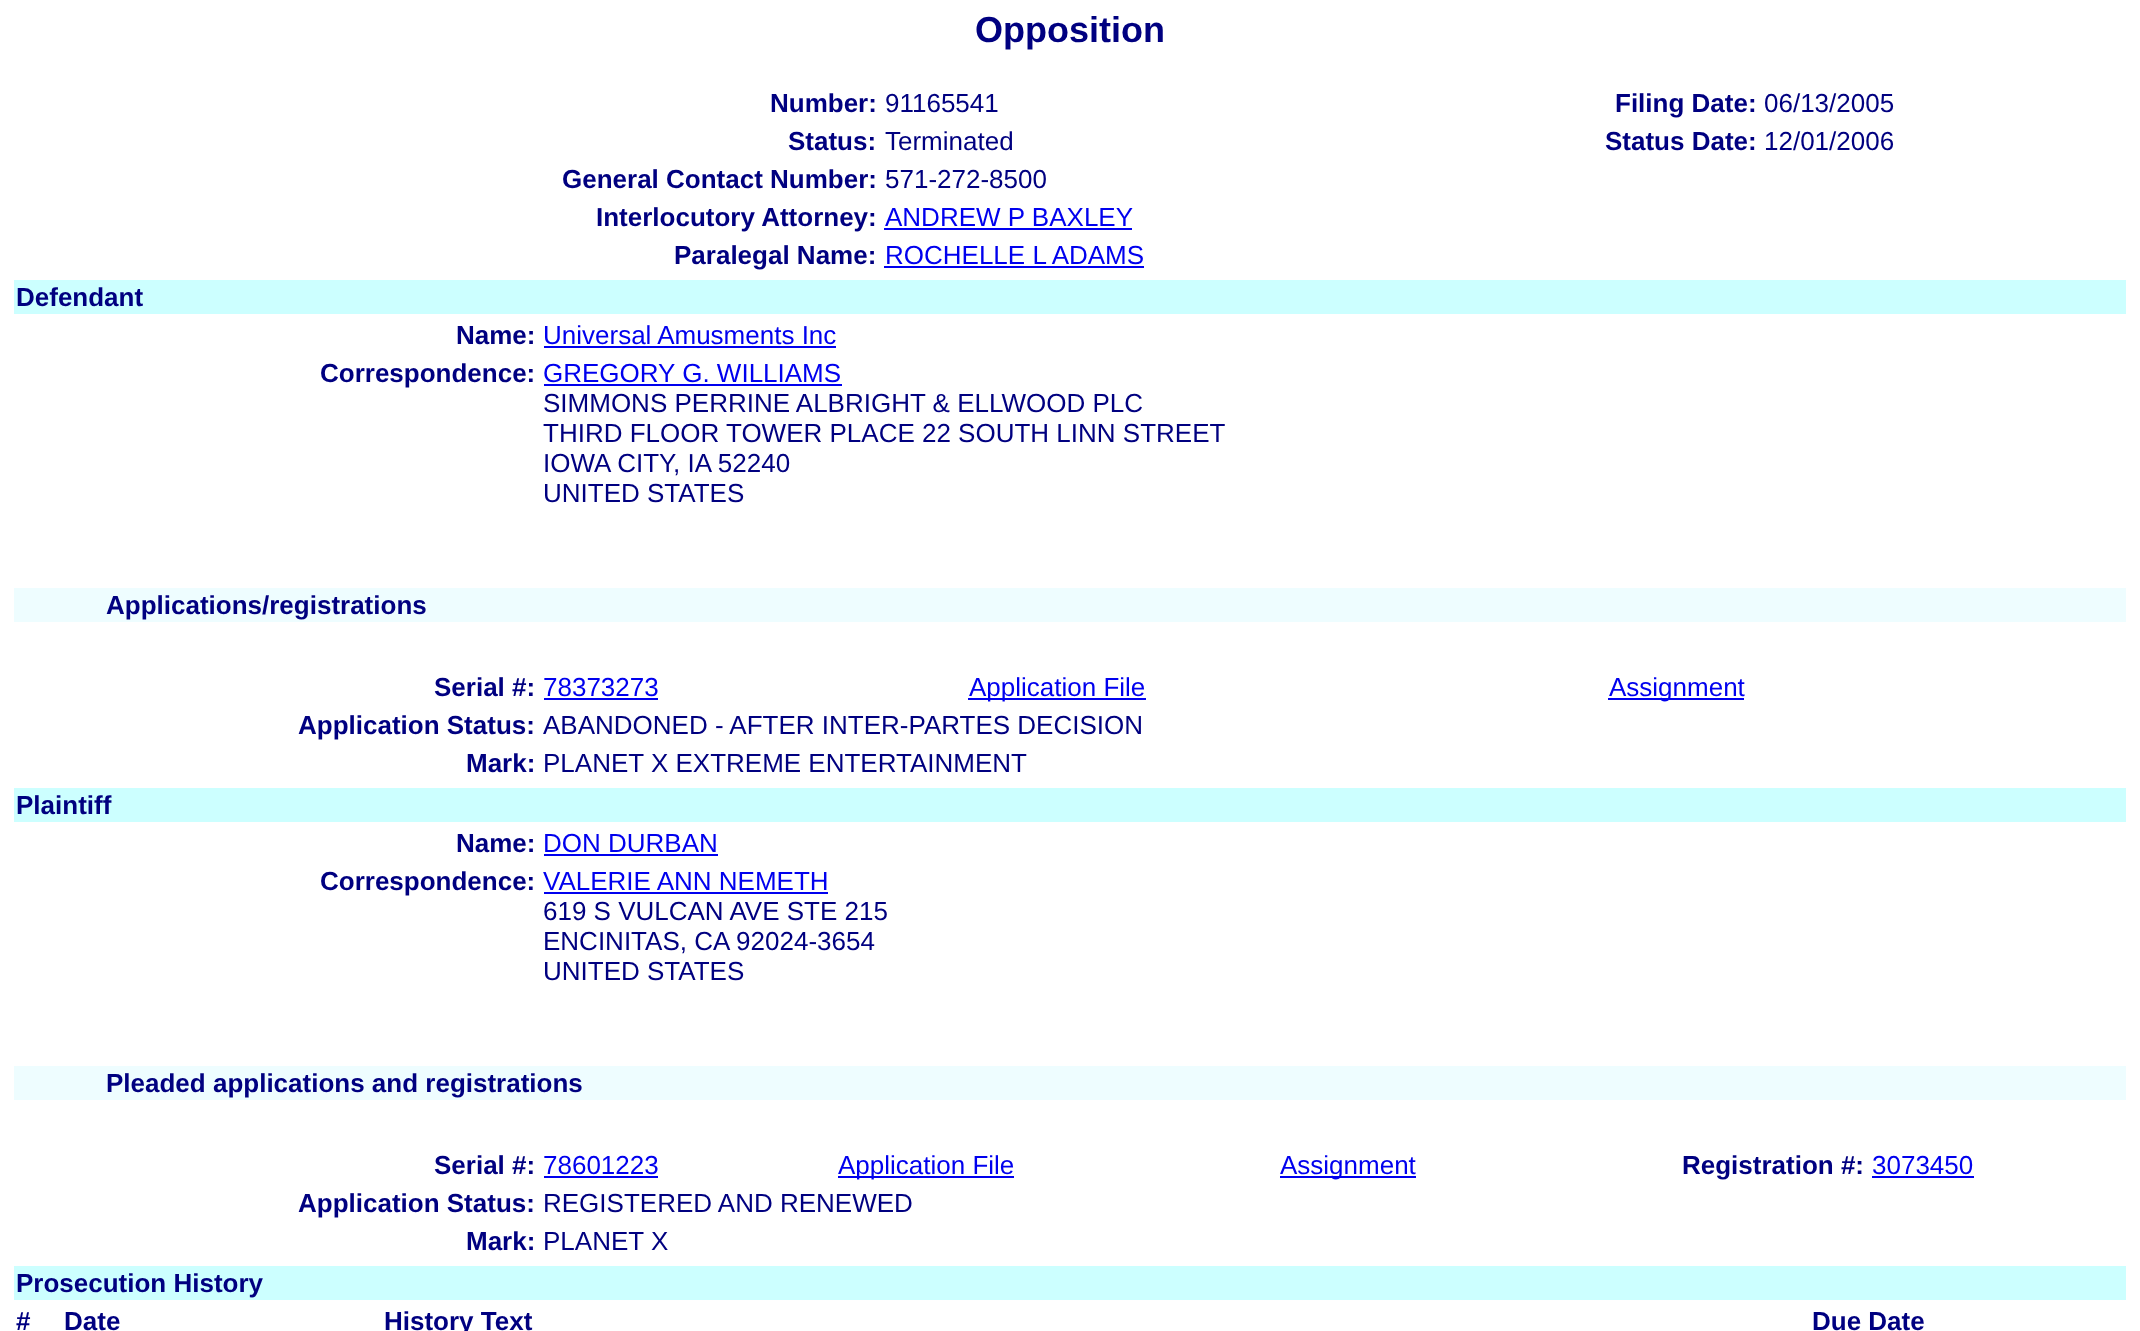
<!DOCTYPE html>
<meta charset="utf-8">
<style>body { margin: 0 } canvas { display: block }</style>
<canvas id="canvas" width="2140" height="1331"></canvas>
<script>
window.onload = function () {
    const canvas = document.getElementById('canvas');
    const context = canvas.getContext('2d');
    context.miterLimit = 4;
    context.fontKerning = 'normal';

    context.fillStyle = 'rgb(255, 255, 255)';
    context.fillRect(0, 0, 2140, 1331);
    context.fillStyle = 'rgb(0, 0, 238)';
    context.fillRect(884, 228, 248, 2);
    context.fillRect(884, 266, 260, 2);
    context.fillStyle = 'rgb(204, 255, 255)';
    context.fillRect(14, 280, 2112, 34);
    context.fillStyle = 'rgb(0, 0, 238)';
    context.fillRect(544, 346, 292, 2);
    context.fillRect(544, 384, 298, 2);
    context.fillStyle = 'rgb(238, 253, 255)';
    context.fillRect(14, 588, 2112, 34);
    context.fillStyle = 'rgb(0, 0, 238)';
    context.fillRect(544, 698, 114, 2);
    context.fillRect(968, 698, 178, 2);
    context.fillRect(1608, 698, 136, 2);
    context.fillStyle = 'rgb(204, 255, 255)';
    context.fillRect(14, 788, 2112, 34);
    context.fillStyle = 'rgb(0, 0, 238)';
    context.fillRect(544, 854, 174, 2);
    context.fillRect(544, 892, 284, 2);
    context.fillStyle = 'rgb(238, 253, 255)';
    context.fillRect(14, 1066, 2112, 34);
    context.fillStyle = 'rgb(0, 0, 238)';
    context.fillRect(544, 1176, 114, 2);
    context.fillRect(838, 1176, 176, 2);
    context.fillRect(1280, 1176, 136, 2);
    context.fillRect(1872, 1176, 102, 2);
    context.fillStyle = 'rgb(204, 255, 255)';
    context.fillRect(14, 1266, 2112, 34);
    context.font = 'bold 36px Liberation Sans';
    context.fillStyle = 'rgb(0, 0, 128)';
    context.fillText('Opposition', 975, 42);
    context.font = 'bold 26px Liberation Sans';
    context.fillText('Number:', 770, 112);
    context.font = '26px Liberation Sans';
    context.fillText('91165541', 885, 112);
    context.font = 'bold 26px Liberation Sans';
    context.fillText('Filing Date:', 1615, 112);
    context.font = '26px Liberation Sans';
    context.fillText('06/13/2005', 1764, 112);
    context.font = 'bold 26px Liberation Sans';
    context.fillText('Status:', 788, 150);
    context.font = '26px Liberation Sans';
    context.fillText('Terminated', 885, 150);
    context.font = 'bold 26px Liberation Sans';
    context.fillText('Status Date:', 1605, 150);
    context.font = '26px Liberation Sans';
    context.fillText('12/01/2006', 1764, 150);
    context.font = 'bold 26px Liberation Sans';
    context.fillText('General Contact Number:', 562, 188);
    context.font = '26px Liberation Sans';
    context.fillText('571-272-8500', 885, 188);
    context.font = 'bold 26px Liberation Sans';
    context.fillText('Interlocutory Attorney:', 596, 226);
    context.font = '26px Liberation Sans';
    context.fillStyle = 'rgb(0, 0, 238)';
    context.fillText('ANDREW P BAXLEY', 885, 226);
    context.font = 'bold 26px Liberation Sans';
    context.fillStyle = 'rgb(0, 0, 128)';
    context.fillText('Paralegal Name:', 674, 264);
    context.font = '26px Liberation Sans';
    context.fillStyle = 'rgb(0, 0, 238)';
    context.fillText('ROCHELLE L ADAMS', 885, 264);
    context.font = 'bold 26px Liberation Sans';
    context.fillStyle = 'rgb(0, 0, 128)';
    context.fillText('Defendant', 16, 306);
    context.fillText('Name:', 456, 344);
    context.font = '26px Liberation Sans';
    context.fillStyle = 'rgb(0, 0, 238)';
    context.fillText('Universal Amusments Inc', 543, 344);
    context.font = 'bold 26px Liberation Sans';
    context.fillStyle = 'rgb(0, 0, 128)';
    context.fillText('Correspondence:', 320, 382);
    context.font = '26px Liberation Sans';
    context.fillStyle = 'rgb(0, 0, 238)';
    context.fillText('GREGORY G. WILLIAMS', 543, 382);
    context.fillStyle = 'rgb(0, 0, 128)';
    context.fillText('SIMMONS PERRINE ALBRIGHT & ELLWOOD PLC', 543, 412);
    context.fillText('THIRD FLOOR TOWER PLACE 22 SOUTH LINN STREET', 543, 442);
    context.fillText('IOWA CITY, IA 52240', 543, 472);
    context.fillText('UNITED STATES', 543, 502);
    context.font = 'bold 26px Liberation Sans';
    context.fillText('Applications/registrations', 106, 614);
    context.fillText('Serial #:', 434, 696);
    context.font = '26px Liberation Sans';
    context.fillStyle = 'rgb(0, 0, 238)';
    context.fillText('78373273', 543, 696);
    context.fillText('Application File', 969, 696);
    context.fillText('Assignment', 1609, 696);
    context.font = 'bold 26px Liberation Sans';
    context.fillStyle = 'rgb(0, 0, 128)';
    context.fillText('Application Status:', 298, 734);
    context.font = '26px Liberation Sans';
    context.fillText('ABANDONED - AFTER INTER-PARTES DECISION', 543, 734);
    context.font = 'bold 26px Liberation Sans';
    context.fillText('Mark:', 466, 772);
    context.font = '26px Liberation Sans';
    context.fillText('PLANET X EXTREME ENTERTAINMENT', 543, 772);
    context.font = 'bold 26px Liberation Sans';
    context.fillText('Plaintiff', 16, 814);
    context.fillText('Name:', 456, 852);
    context.font = '26px Liberation Sans';
    context.fillStyle = 'rgb(0, 0, 238)';
    context.fillText('DON DURBAN', 543, 852);
    context.font = 'bold 26px Liberation Sans';
    context.fillStyle = 'rgb(0, 0, 128)';
    context.fillText('Correspondence:', 320, 890);
    context.font = '26px Liberation Sans';
    context.fillStyle = 'rgb(0, 0, 238)';
    context.fillText('VALERIE ANN NEMETH', 543, 890);
    context.fillStyle = 'rgb(0, 0, 128)';
    context.fillText('619 S VULCAN AVE STE 215', 543, 920);
    context.fillText('ENCINITAS, CA 92024-3654', 543, 950);
    context.fillText('UNITED STATES', 543, 980);
    context.font = 'bold 26px Liberation Sans';
    context.fillText('Pleaded applications and registrations', 106, 1092);
    context.fillText('Serial #:', 434, 1174);
    context.font = '26px Liberation Sans';
    context.fillStyle = 'rgb(0, 0, 238)';
    context.fillText('78601223', 543, 1174);
    context.fillText('Application File', 838, 1174);
    context.fillText('Assignment', 1280, 1174);
    context.font = 'bold 26px Liberation Sans';
    context.fillStyle = 'rgb(0, 0, 128)';
    context.fillText('Registration #:', 1682, 1174);
    context.font = '26px Liberation Sans';
    context.fillStyle = 'rgb(0, 0, 238)';
    context.fillText('3073450', 1872, 1174);
    context.font = 'bold 26px Liberation Sans';
    context.fillStyle = 'rgb(0, 0, 128)';
    context.fillText('Application Status:', 298, 1212);
    context.font = '26px Liberation Sans';
    context.fillText('REGISTERED AND RENEWED', 543, 1212);
    context.font = 'bold 26px Liberation Sans';
    context.fillText('Mark:', 466, 1250);
    context.font = '26px Liberation Sans';
    context.fillText('PLANET X', 543, 1250);
    context.font = 'bold 26px Liberation Sans';
    context.fillText('Prosecution History', 16, 1292);
    context.fillText('#', 16, 1330);
    context.fillText('Date', 64, 1330);
    context.fillText('History Text', 384, 1330);
    context.fillText('Due Date', 1812, 1330);
};
</script>
